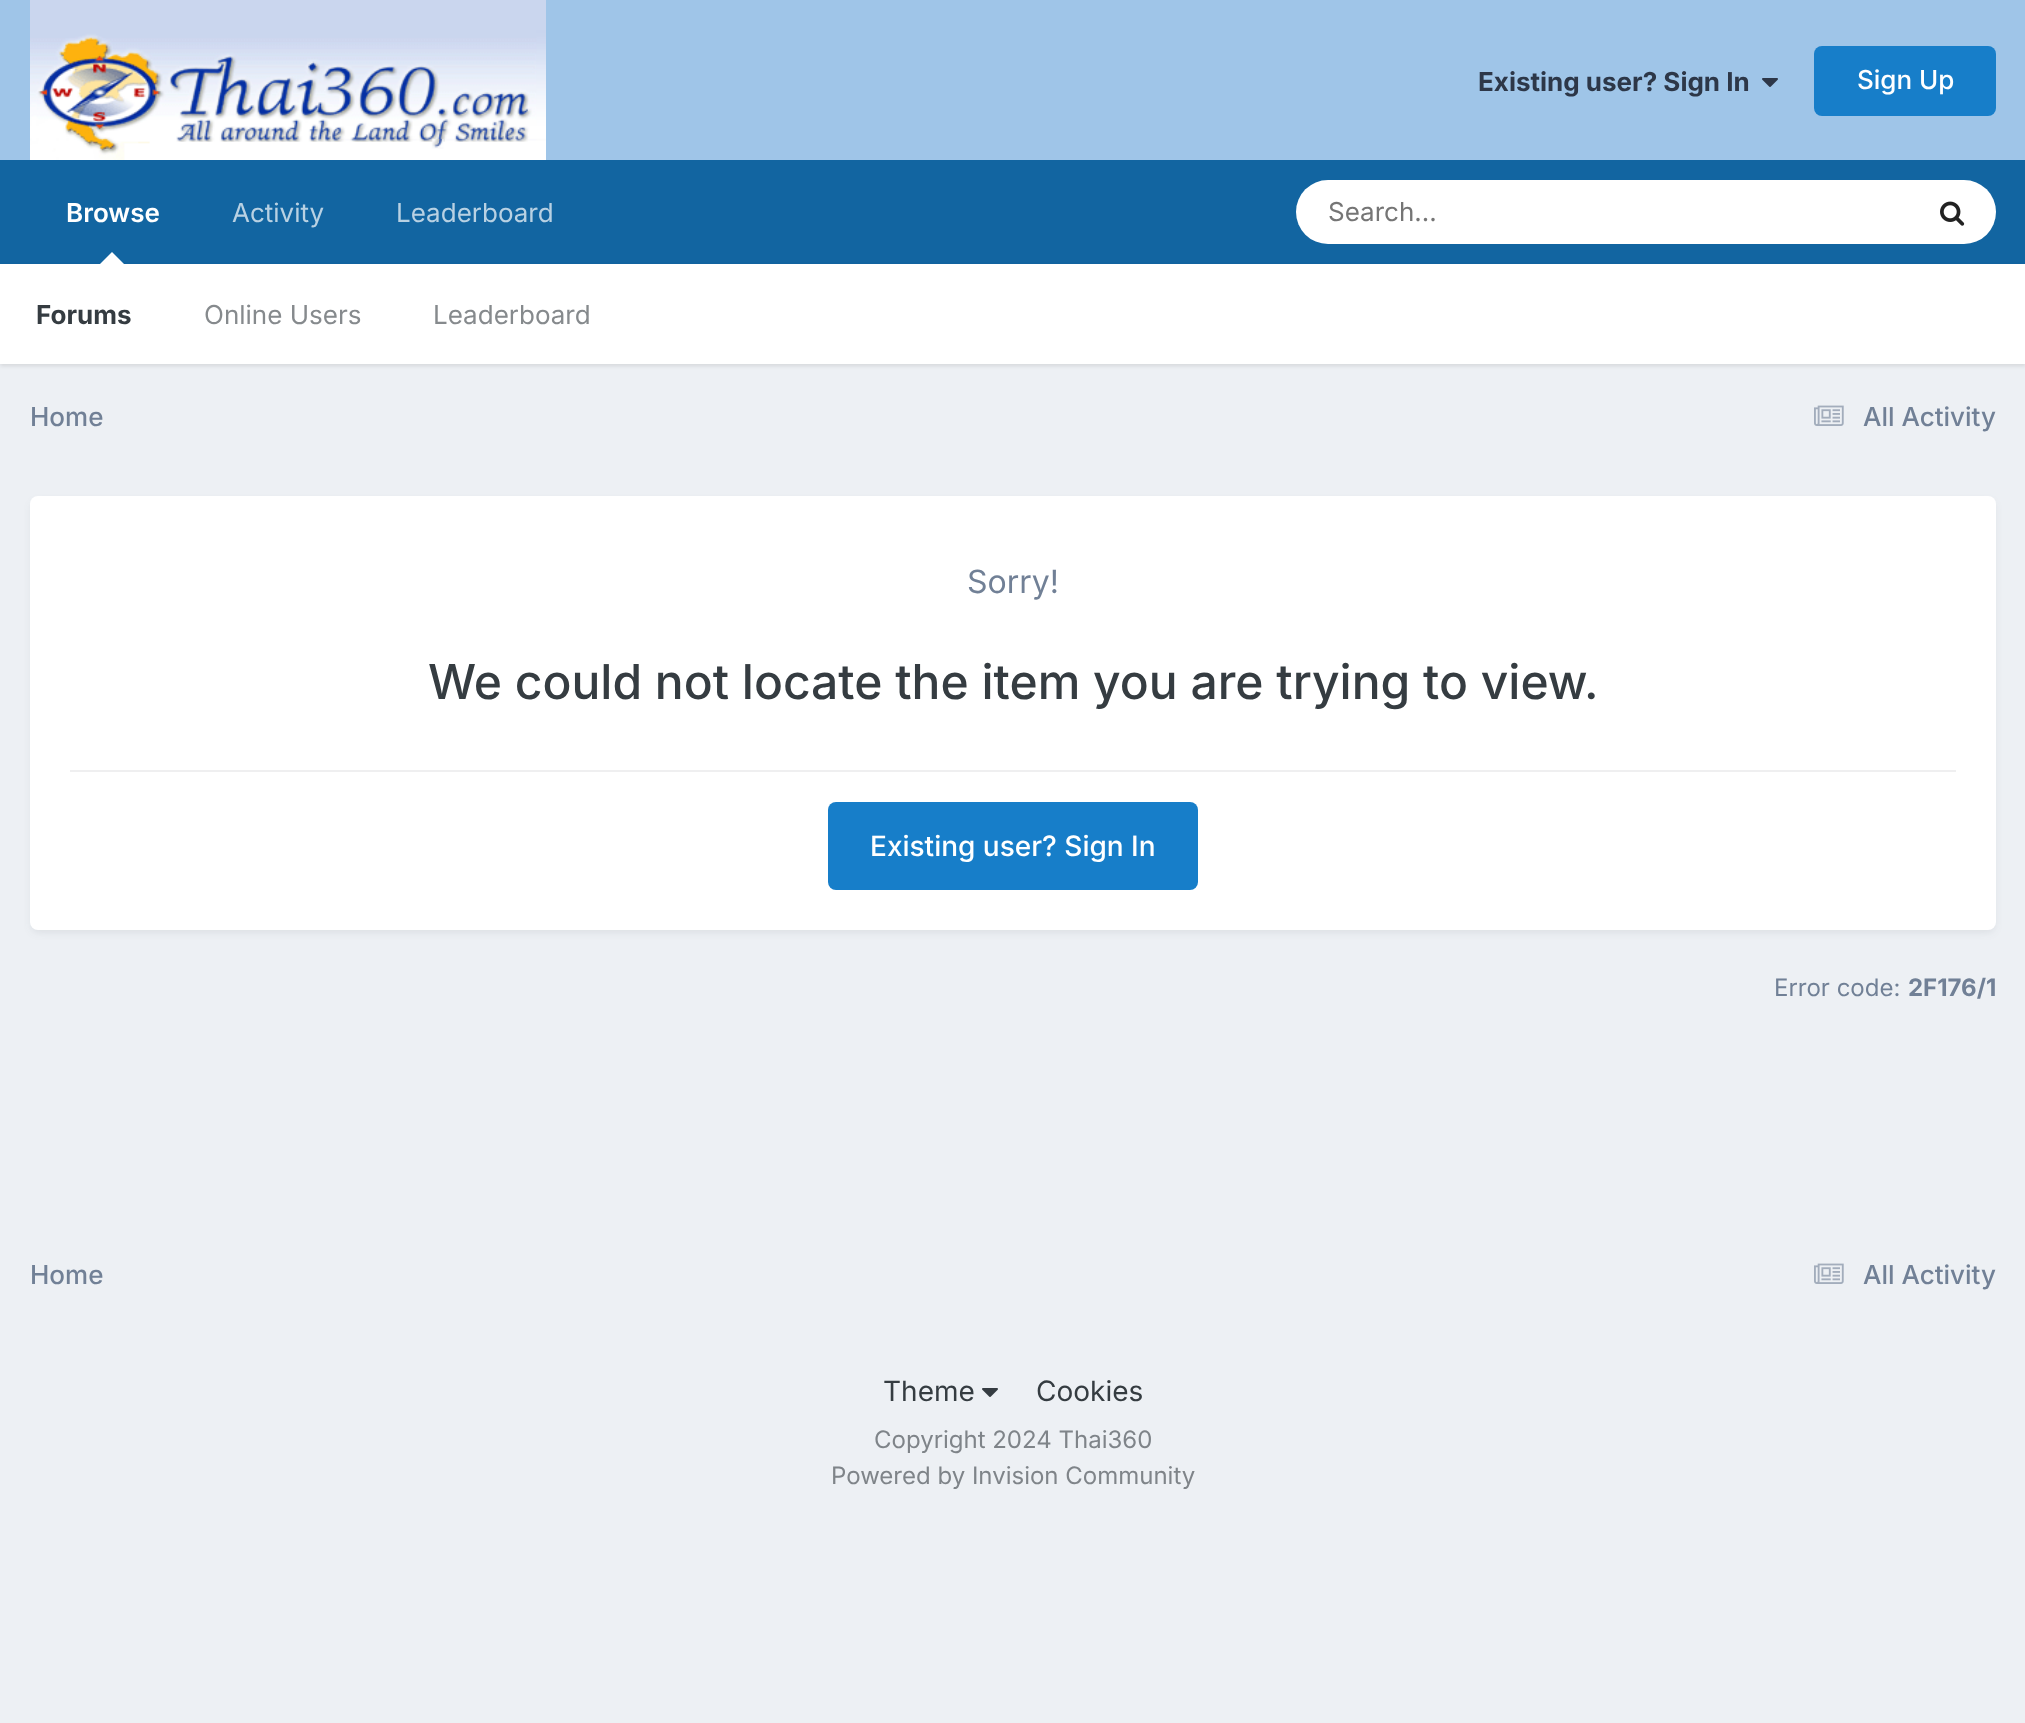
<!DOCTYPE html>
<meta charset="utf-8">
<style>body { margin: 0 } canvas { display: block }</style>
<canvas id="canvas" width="2025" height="1723"></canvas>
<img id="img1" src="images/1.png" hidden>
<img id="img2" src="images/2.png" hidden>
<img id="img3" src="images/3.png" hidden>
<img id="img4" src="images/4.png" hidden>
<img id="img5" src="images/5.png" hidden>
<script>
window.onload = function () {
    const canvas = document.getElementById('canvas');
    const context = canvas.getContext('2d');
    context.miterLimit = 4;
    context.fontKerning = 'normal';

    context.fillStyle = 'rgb(237, 240, 244)';
    context.fillRect(0, 0, 2025, 1723);
    context.fillStyle = 'rgb(159, 197, 232)';
    context.fillRect(0, 0, 2025, 160);
    context.drawImage(document.getElementById('img1'), 30, 0, 516, 160);
    context.drawImage(document.getElementById('img2'), 1762, 78, 16, 9);
    context.fillStyle = 'rgb(23, 126, 201)';
    context.beginPath();
    context.roundRect(1814, 46, 182, 70, 8);
    context.fill();
    context.fillStyle = 'rgb(18, 101, 161)';
    context.fillRect(0, 160, 2025, 104);
    context.fillStyle = 'rgba(0, 0, 0, 0.1)';
    context.filter = 'blur(2px)';
    context.beginPath();
    context.rect(0, 266, 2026, 100);
    context.fill();
    context.filter = 'none';
    context.fillStyle = 'rgb(255, 255, 255)';
    context.beginPath();
    context.moveTo(124, 264);
    context.lineTo(100, 264);
    context.lineTo(112, 252);
    context.closePath();
    context.fill();
    context.beginPath();
    context.roundRect(1296, 180, 700, 64, 32);
    context.fill();
    context.drawImage(document.getElementById('img3'), 1940, 201, 25, 25);
    context.fillRect(0, 264, 2025, 100);
    context.drawImage(document.getElementById('img4'), 1814, 405, 30, 21);
    context.fillStyle = 'rgba(45, 55, 72, 0.1)';
    context.filter = 'blur(4px)';
    context.beginPath();
    context.roundRect(32, 502, 1962, 430, 6);
    context.fill();
    context.filter = 'none';
    context.fillStyle = 'rgb(255, 255, 255)';
    context.beginPath();
    context.roundRect(30, 496, 1966, 434, 8);
    context.fill();
    context.fillStyle = 'rgb(239, 239, 240)';
    context.fillRect(70, 770, 1886, 2);
    context.fillStyle = 'rgb(23, 126, 201)';
    context.beginPath();
    context.roundRect(828, 802, 370, 88, 8);
    context.fill();
    context.drawImage(document.getElementById('img4'), 1814, 1263, 30, 21);
    context.drawImage(document.getElementById('img5'), 982, 1388, 16, 9);
    context.font = 'bold 26px Inter';
    context.fillStyle = 'rgb(45, 55, 72)';
    context.fillText('Existing user? Sign In', 1478, 91);
    context.font = '500 26px Inter';
    context.fillStyle = 'rgb(255, 255, 255)';
    context.fillText('Sign Up', 1857, 89);
    context.font = '26px Inter';
    context.fillStyle = 'rgb(184, 209, 227)';
    context.fillText('Activity', 232, 222);
    context.font = '600 26px Inter';
    context.fillStyle = 'rgb(255, 255, 255)';
    context.fillText('Browse', 66, 222);
    context.font = 'bold 26px Inter';
    context.fillStyle = 'rgb(53, 60, 65)';
    context.fillText('Forums', 36, 324);
    context.font = '26px Inter';
    context.fillStyle = 'rgb(134, 138, 141)';
    context.fillText('Online Users', 204, 324);
    context.fillText('Leaderboard', 433, 324);
    context.fillStyle = 'rgb(184, 209, 227)';
    context.fillText('Leaderboard', 396, 222);
    context.fillStyle = 'rgb(117, 117, 117)';
    context.fillText('Search...', 1328, 221);
    context.font = '500 26px Inter';
    context.fillStyle = 'rgb(113, 128, 150)';
    context.fillText('Home', 30, 426);
    context.fillText('All Activity', 1863, 426);
    context.font = '32px Inter';
    context.fillText('Sorry!', 967, 593);
    context.font = '500 48px Inter';
    context.fillStyle = 'rgb(53, 60, 65)';
    context.fillText('We could not locate the item you are trying to view.', 428, 699);
    context.font = '500 28px Inter';
    context.fillStyle = 'rgb(255, 255, 255)';
    context.fillText('Existing user? Sign In', 870, 856);
    context.font = '24px Inter';
    context.fillStyle = 'rgb(113, 128, 150)';
    context.fillText('Error code:', 1774, 996);
    context.font = 'bold 24px Inter';
    context.fillText('2F176/1', 1908, 996);
    context.font = '500 26px Inter';
    context.fillText('Home', 30, 1284);
    context.fillText('All Activity', 1863, 1284);
    context.font = '28px Inter';
    context.fillStyle = 'rgb(53, 60, 65)';
    context.fillText('Theme', 883, 1401);
    context.fillText('Cookies', 1036, 1401);
    context.font = '24px Inter';
    context.fillStyle = 'rgb(127, 132, 137)';
    context.fillText('Copyright 2024 Thai360', 874, 1448);
    context.fillText('Powered by Invision Community', 831, 1484);
};
</script>
